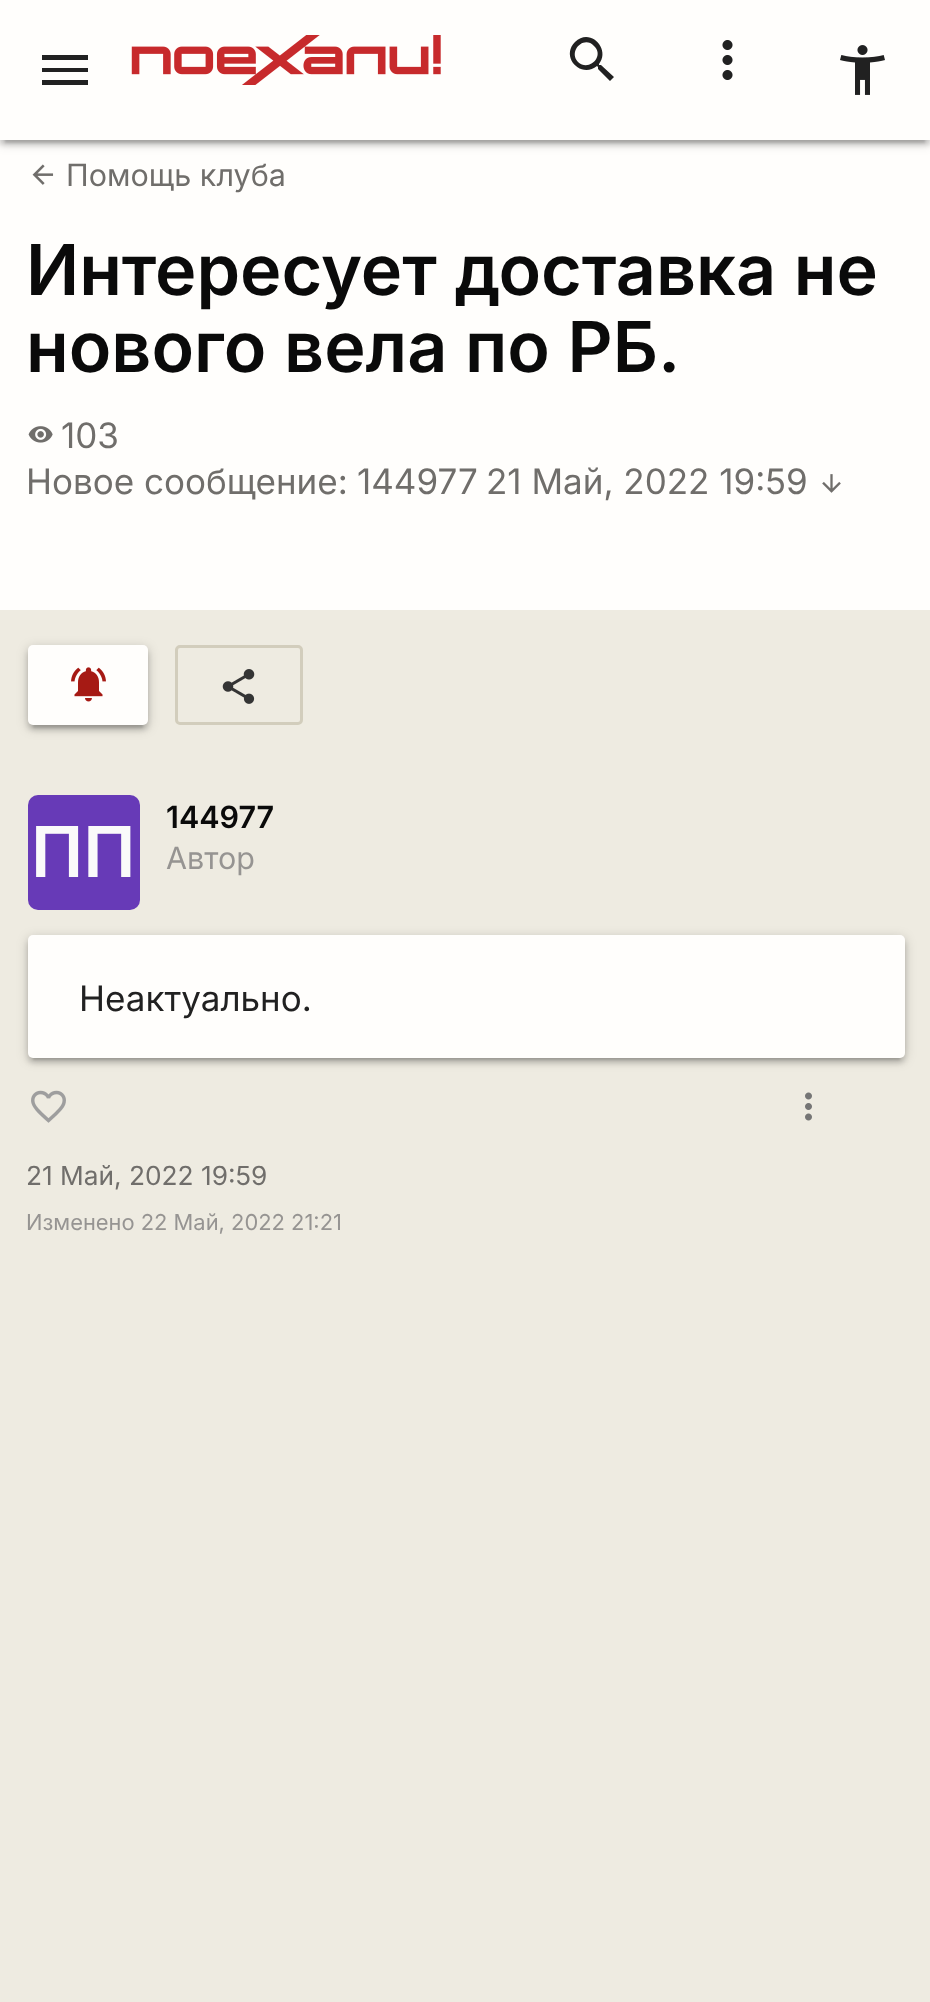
<!DOCTYPE html>
<meta charset="utf-8">
<style>body { margin: 0 } canvas { display: block }</style>
<canvas id="canvas" width="930" height="2002"></canvas>
<img id="img1" src="images/1.png" hidden>
<img id="img2" src="images/2.png" hidden>
<img id="img3" src="images/3.png" hidden>
<img id="img4" src="images/4.png" hidden>
<img id="img5" src="images/5.png" hidden>
<img id="img6" src="images/6.png" hidden>
<img id="img7" src="images/7.png" hidden>
<img id="img8" src="images/8.png" hidden>
<img id="img9" src="images/9.png" hidden>
<img id="img10" src="images/10.png" hidden>
<script>
window.onload = function () {
    const canvas = document.getElementById('canvas');
    const context = canvas.getContext('2d');
    context.miterLimit = 4;
    context.fontKerning = 'normal';

    context.fillStyle = 'rgb(238, 235, 225)';
    context.fillRect(0, 0, 930, 2002);
    context.fillStyle = 'rgb(255, 254, 252)';
    context.fillRect(0, 140, 930, 470);
    context.fillStyle = 'rgba(0, 0, 0, 0.2)';
    context.filter = 'blur(6px)';
    context.beginPath();
    context.rect(0, 3, 930, 140);
    context.fill();
    context.filter = 'none';
    context.fillStyle = 'rgba(0, 0, 0, 0.12)';
    context.filter = 'blur(1px)';
    context.beginPath();
    context.rect(5, 13, 920, 130);
    context.fill();
    context.filter = 'none';
    context.fillStyle = 'rgba(0, 0, 0, 0.14)';
    context.filter = 'blur(2.5px)';
    context.beginPath();
    context.rect(0, 5, 930, 140);
    context.fill();
    context.filter = 'none';
    context.fillStyle = 'rgb(255, 254, 252)';
    context.fillRect(0, 0, 930, 140);
    context.fillStyle = 'rgb(33, 33, 33)';
    context.beginPath();
    context.moveTo(42, 55);
    context.lineTo(88, 55);
    context.lineTo(88, 60);
    context.lineTo(42, 60);
    context.closePath();
    context.moveTo(42, 72);
    context.lineTo(42, 68);
    context.lineTo(88, 68);
    context.lineTo(88, 72);
    context.closePath();
    context.moveTo(42, 85);
    context.lineTo(42, 80);
    context.lineTo(88, 80);
    context.lineTo(88, 85);
    context.closePath();
    context.fill();
    context.drawImage(document.getElementById('img1'), 131, 35, 310, 50);
    context.beginPath();
    context.moveTo(578, 62);
    context.bezierCurveTo(589, 72, 605, 56, 594, 46);
    context.bezierCurveTo(584, 35, 568, 51, 578, 62);
    context.closePath();
    context.moveTo(601, 65);
    context.lineTo(614, 77);
    context.lineTo(610, 81);
    context.lineTo(598, 69);
    context.lineTo(598, 67);
    context.lineTo(597, 66);
    context.bezierCurveTo(581, 79, 560, 57, 575, 42);
    context.bezierCurveTo(590, 27, 611, 49, 599, 64);
    context.lineTo(599, 65);
    context.closePath();
    context.fill();
    context.drawImage(document.getElementById('img2'), 722, 40, 11, 40);
    context.drawImage(document.getElementById('img3'), 840, 45, 45, 50);
    context.drawImage(document.getElementById('img4'), 32, 164, 22, 21);
    context.drawImage(document.getElementById('img5'), 28, 426, 25, 17);
    context.drawImage(document.getElementById('img6'), 822, 474, 19, 19);
    context.fillStyle = 'rgba(0, 0, 0, 0.2)';
    context.filter = 'blur(6px)';
    context.beginPath();
    context.roundRect(28, 648, 120, 80, 5);
    context.fill();
    context.filter = 'none';
    context.fillStyle = 'rgba(0, 0, 0, 0.12)';
    context.filter = 'blur(1px)';
    context.beginPath();
    context.rect(33, 658, 110, 70);
    context.fill();
    context.filter = 'none';
    context.fillStyle = 'rgba(0, 0, 0, 0.14)';
    context.filter = 'blur(2.5px)';
    context.beginPath();
    context.roundRect(28, 650, 120, 80, 5);
    context.fill();
    context.filter = 'none';
    context.fillStyle = 'rgb(255, 254, 252)';
    context.beginPath();
    context.roundRect(28, 645, 120, 80, 5);
    context.fill();
    context.drawImage(document.getElementById('img7'), 71, 667, 35, 35);
    context.beginPath();
    context.roundRect(176.5, 646.5, 125, 77, 3.5);
    context.strokeStyle = 'rgb(210, 205, 188)';
    context.lineWidth = 3;
    context.stroke();
    context.drawImage(document.getElementById('img8'), 222, 669, 33, 35);
    context.fillStyle = 'rgb(103, 58, 183)';
    context.beginPath();
    context.roundRect(28, 795, 112, 115, 10);
    context.fill();
    context.fillStyle = 'rgba(0, 0, 0, 0.2)';
    context.filter = 'blur(6px)';
    context.beginPath();
    context.roundRect(28, 938, 877, 122, 5);
    context.fill();
    context.filter = 'none';
    context.fillStyle = 'rgba(0, 0, 0, 0.12)';
    context.filter = 'blur(1px)';
    context.beginPath();
    context.rect(33, 948, 867, 112);
    context.fill();
    context.filter = 'none';
    context.fillStyle = 'rgba(0, 0, 0, 0.14)';
    context.filter = 'blur(2.5px)';
    context.beginPath();
    context.roundRect(28, 940, 877, 123, 5);
    context.fill();
    context.filter = 'none';
    context.fillStyle = 'rgb(255, 254, 252)';
    context.beginPath();
    context.roundRect(28, 935, 877, 123, 5);
    context.fill();
    context.drawImage(document.getElementById('img9'), 805, 1092, 7, 29);
    context.drawImage(document.getElementById('img10'), 31, 1090, 35, 33);
    context.font = '30.5px Inter';
    context.fillStyle = 'rgb(112, 110, 107)';
    context.fillText('Помощь клуба', 66, 186);
    context.font = '600 70px Inter';
    context.fillStyle = 'rgb(10, 10, 10)';
    context.fillText('Интересует доставка не', 26, 295);
    context.fillText('нового вела по РБ.', 26, 372);
    context.font = '35px Inter';
    context.fillStyle = 'rgb(112, 110, 107)';
    context.fillText('103', 61, 448);
    context.fillText('Новое сообщение:', 26, 494);
    context.fillText('144977', 357, 494);
    context.fillText('21 Май, 2022 19:59', 486, 494);
    context.font = '600 30.5px Inter';
    context.fillStyle = 'rgb(10, 10, 10)';
    context.fillText('144977', 166, 828);
    context.font = '600 70px Inter';
    context.fillStyle = 'rgb(250, 250, 250)';
    context.fillText('ПП', 31, 877);
    context.font = '30.5px Inter';
    context.fillStyle = 'rgb(150, 148, 146)';
    context.fillText('Автор', 166, 869);
    context.font = '35px Inter';
    context.fillStyle = 'rgb(33, 33, 33)';
    context.fillText('Неактуально.', 79, 1011);
    context.font = '26.25px Inter';
    context.fillStyle = 'rgb(112, 110, 107)';
    context.fillText('21 Май, 2022 19:59', 26, 1185);
    context.font = '21.9px Inter';
    context.fillStyle = 'rgb(150, 148, 146)';
    context.fillText('Изменено 22 Май, 2022 21:21', 26, 1230);
};
</script>
